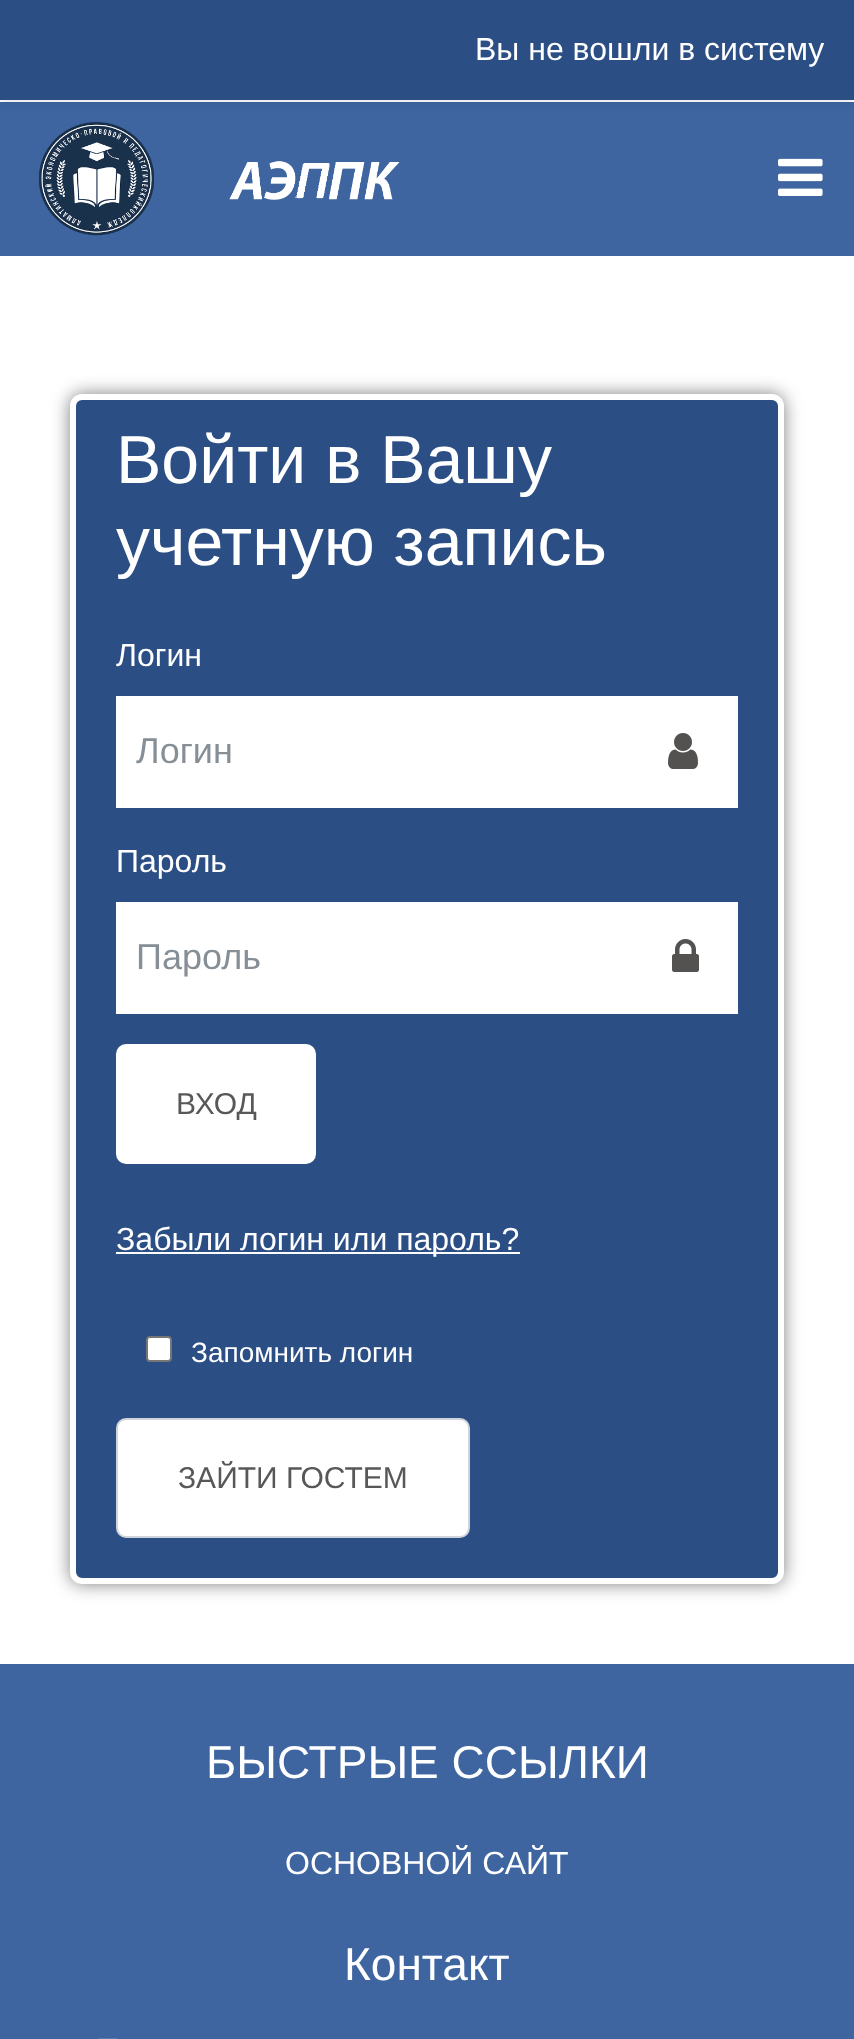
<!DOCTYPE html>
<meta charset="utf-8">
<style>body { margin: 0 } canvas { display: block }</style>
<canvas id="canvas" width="854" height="2039"></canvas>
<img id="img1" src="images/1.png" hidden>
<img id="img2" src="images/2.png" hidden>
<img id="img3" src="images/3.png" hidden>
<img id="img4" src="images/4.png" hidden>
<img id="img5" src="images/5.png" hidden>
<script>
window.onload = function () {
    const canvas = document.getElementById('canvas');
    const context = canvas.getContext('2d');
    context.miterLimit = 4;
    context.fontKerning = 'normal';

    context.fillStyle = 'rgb(255, 255, 255)';
    context.fillRect(0, 0, 854, 2039);
    context.fillStyle = 'rgb(62, 101, 160)';
    context.fillRect(0, 102, 854, 154);
    context.fillStyle = 'rgba(0, 0, 0, 0.08)';
    context.filter = 'blur(4px)';
    context.beginPath();
    context.rect(0, 4, 854, 100);
    context.fill();
    context.filter = 'none';
    context.fillStyle = 'rgb(43, 78, 132)';
    context.fillRect(0, 0, 854, 100);
    context.drawImage(document.getElementById('img1'), 39, 122, 361, 114);
    context.drawImage(document.getElementById('img2'), 778, 158, 45, 38);
    context.fillStyle = 'rgba(0, 0, 0, 0.5)';
    context.filter = 'blur(9px)';
    context.beginPath();
    context.roundRect(70, 394, 714, 1190, 12);
    context.fill();
    context.filter = 'none';
    context.fillStyle = 'rgb(43, 78, 132)';
    context.beginPath();
    context.roundRect(73, 397, 708, 1184, 9);
    context.fill();
    context.strokeStyle = 'rgb(255, 255, 255)';
    context.lineWidth = 6;
    context.stroke();
    context.fillStyle = 'rgb(255, 255, 255)';
    context.fillRect(116, 696, 622, 112);
    context.drawImage(document.getElementById('img3'), 668, 733, 30, 36);
    context.fillRect(116, 902, 622, 112);
    context.drawImage(document.getElementById('img4'), 672, 939, 27, 33);
    context.beginPath();
    context.roundRect(116, 1044, 200, 120, 10);
    context.fill();
    context.fillRect(116, 1252, 404, 2);
    context.beginPath();
    context.roundRect(147, 1337, 24, 24, 3);
    context.fill();
    context.strokeStyle = 'rgb(118, 118, 118)';
    context.lineWidth = 2;
    context.stroke();
    context.beginPath();
    context.roundRect(117, 1419, 352, 118, 9);
    context.fill();
    context.strokeStyle = 'rgb(206, 212, 218)';
    context.stroke();
    context.fillStyle = 'rgb(62, 101, 160)';
    context.fillRect(0, 1664, 854, 375);
    context.drawImage(document.getElementById('img5'), 98, 2038, 20, 1);
    context.font = '32px Liberation Sans';
    context.fillStyle = 'rgb(255, 255, 255)';
    context.fillText('Вы не вошли в систему', 475, 60);
    context.font = '68px Liberation Sans';
    context.fillText('Войти в Вашу', 116, 483);
    context.fillText('учетную запись', 116, 565);
    context.font = '32px Liberation Sans';
    context.fillText('Логин', 116, 666);
    context.font = '36px Liberation Sans';
    context.fillStyle = 'rgb(134, 142, 150)';
    context.fillText('Логин', 136, 763);
    context.font = '32px Liberation Sans';
    context.fillStyle = 'rgb(255, 255, 255)';
    context.fillText('Пароль', 116, 872);
    context.font = '36px Liberation Sans';
    context.fillStyle = 'rgb(134, 142, 150)';
    context.fillText('Пароль', 136, 969);
    context.font = '30px Liberation Sans';
    context.fillStyle = 'rgb(88, 88, 88)';
    context.fillText('ВХОД', 176, 1114);
    context.font = '32px Liberation Sans';
    context.fillStyle = 'rgb(255, 255, 255)';
    context.fillText('Забыли логин или пароль?', 116, 1250);
    context.font = '28px Liberation Sans';
    context.fillText('Запомнить логин', 191, 1362);
    context.font = '30px Liberation Sans';
    context.fillStyle = 'rgb(88, 88, 88)';
    context.fillText('ЗАЙТИ ГОСТЕМ', 178, 1488);
    context.font = '46px Liberation Sans';
    context.fillStyle = 'rgb(255, 255, 255)';
    context.fillText('БЫСТРЫЕ ССЫЛКИ', 206, 1778);
    context.font = '32px Liberation Sans';
    context.fillText('ОСНОВНОЙ САЙТ', 285, 1874);
    context.font = '46px Liberation Sans';
    context.fillText('Контакт', 344, 1980);
};
</script>
